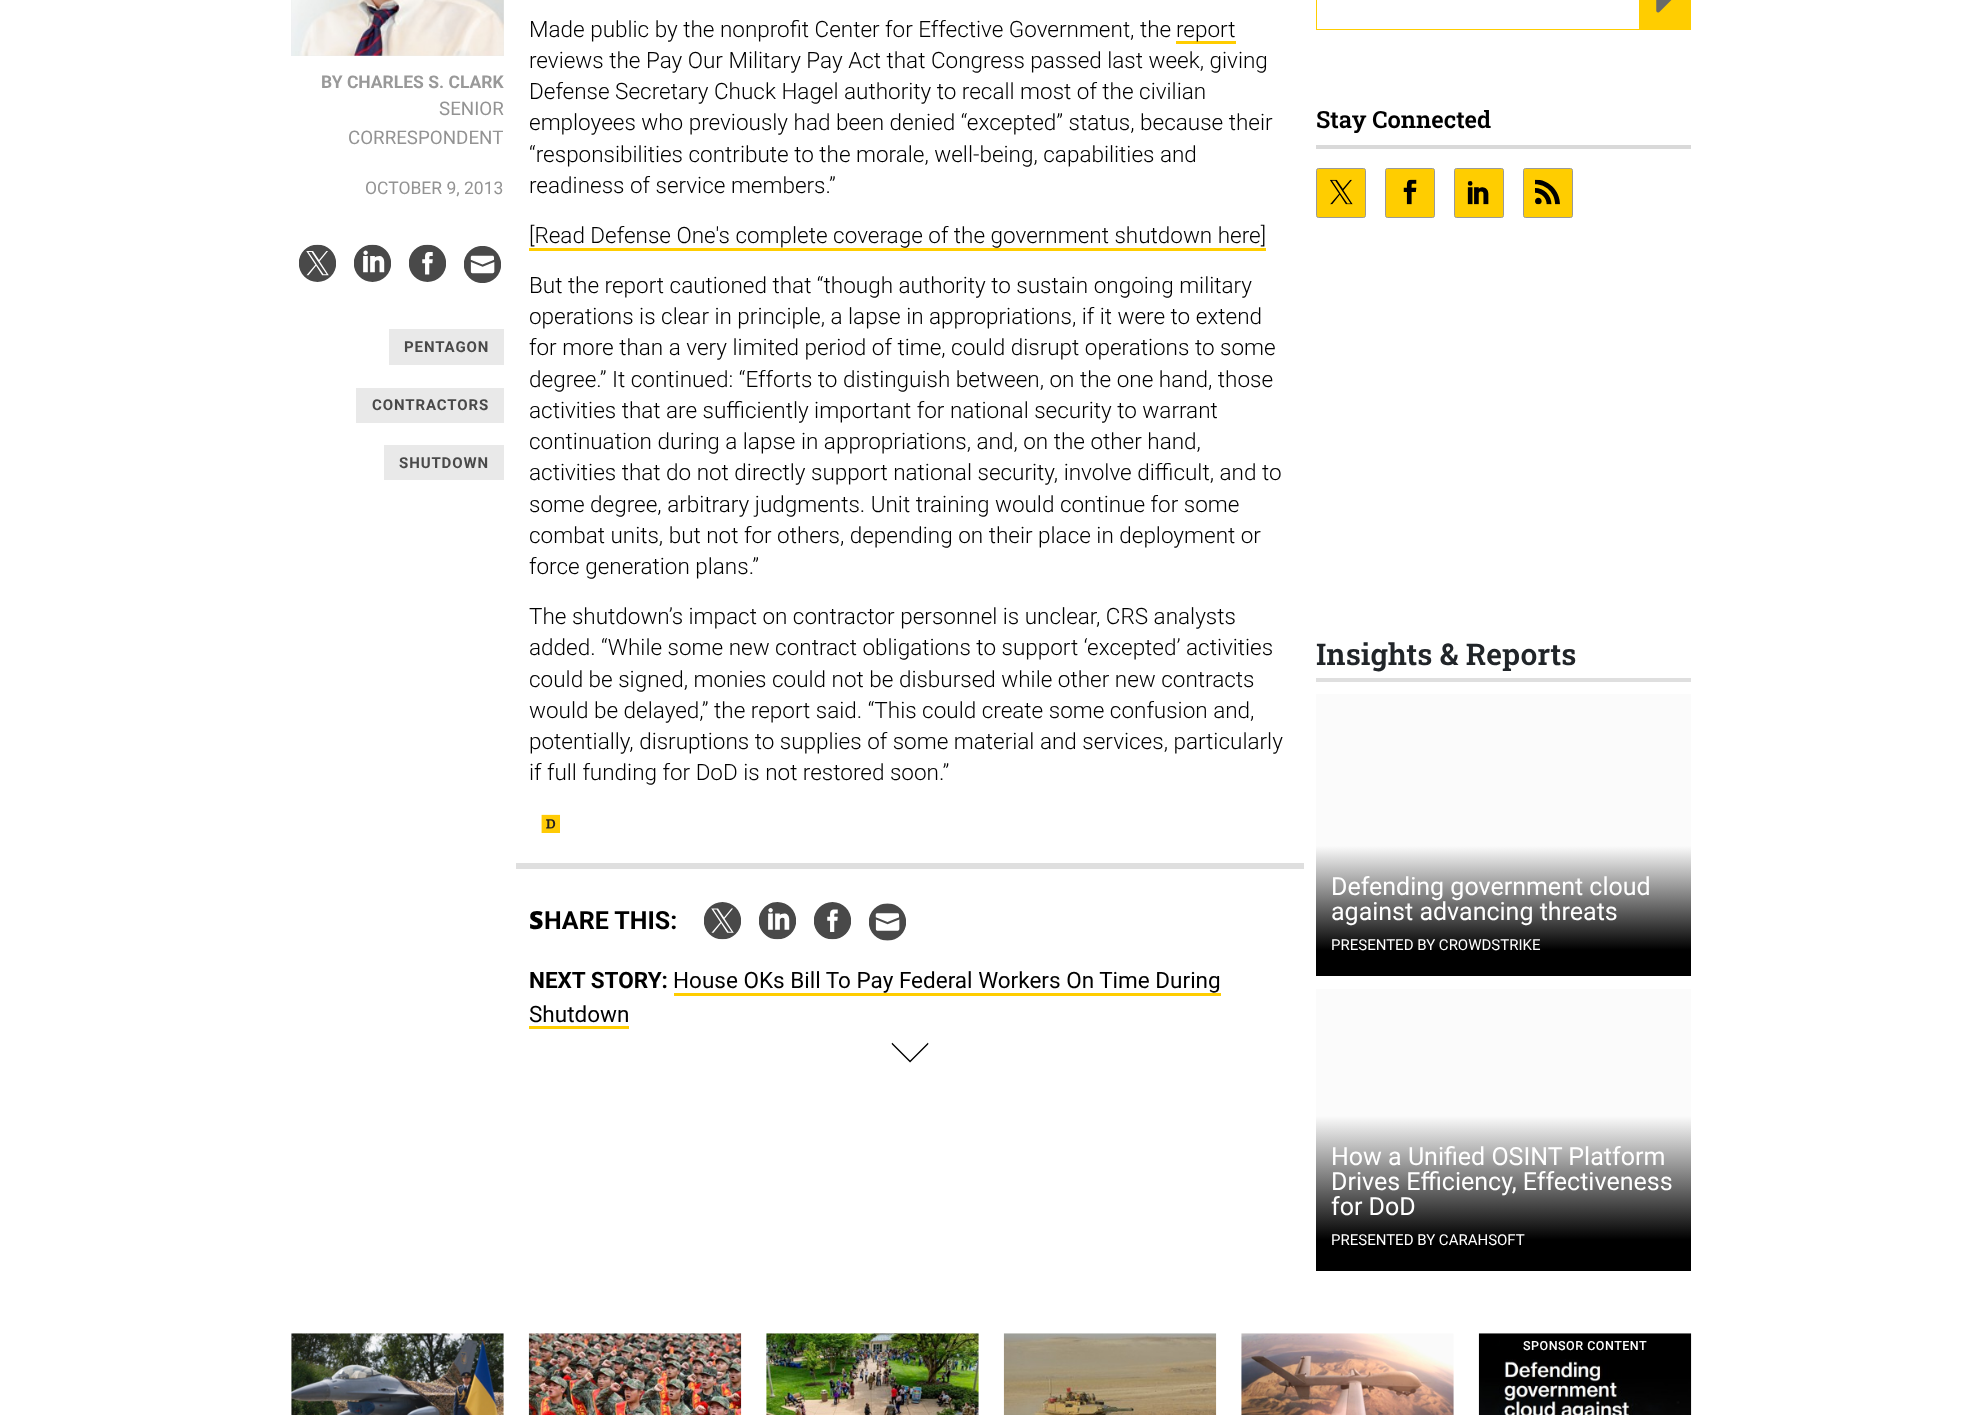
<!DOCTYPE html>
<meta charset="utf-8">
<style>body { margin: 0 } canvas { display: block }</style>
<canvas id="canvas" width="1982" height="1415"></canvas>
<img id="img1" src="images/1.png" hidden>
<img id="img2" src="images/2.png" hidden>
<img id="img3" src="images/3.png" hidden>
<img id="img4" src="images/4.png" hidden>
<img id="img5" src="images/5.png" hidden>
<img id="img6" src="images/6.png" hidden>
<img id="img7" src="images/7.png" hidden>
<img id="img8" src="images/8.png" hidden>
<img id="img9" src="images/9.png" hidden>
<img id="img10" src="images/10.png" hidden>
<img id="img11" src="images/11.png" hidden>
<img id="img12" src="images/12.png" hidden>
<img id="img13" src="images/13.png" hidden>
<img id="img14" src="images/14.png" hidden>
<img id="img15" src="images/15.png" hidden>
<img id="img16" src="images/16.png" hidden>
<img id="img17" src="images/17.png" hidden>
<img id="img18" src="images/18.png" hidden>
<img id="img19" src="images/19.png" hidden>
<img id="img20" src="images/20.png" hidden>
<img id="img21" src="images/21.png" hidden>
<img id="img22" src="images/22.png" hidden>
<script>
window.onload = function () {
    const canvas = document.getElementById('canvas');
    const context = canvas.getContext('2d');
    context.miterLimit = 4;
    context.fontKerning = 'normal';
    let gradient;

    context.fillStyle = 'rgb(255, 255, 255)';
    context.fillRect(0, 0, 1982, 1415);
    context.fillStyle = 'rgb(232, 236, 237)';
    context.fillRect(291, 0, 213, 56);
    context.drawImage(document.getElementById('img1'), 291, 0, 213, 56);
    context.drawImage(document.getElementById('img2'), 299, 244, 37, 38);
    context.drawImage(document.getElementById('img3'), 354, 244, 37, 38);
    context.drawImage(document.getElementById('img4'), 409, 244, 37, 38);
    context.drawImage(document.getElementById('img5'), 464, 246, 37, 37);
    context.fillStyle = 'rgb(233, 233, 233)';
    context.fillRect(389, 329, 115, 36);
    context.fillRect(356, 388, 148, 35);
    context.fillRect(384, 445, 120, 35);
    context.fillStyle = 'rgb(255, 205, 0)';
    context.fillRect(1176, 41, 60, 3);
    context.fillRect(529, 248, 737, 3);
    context.drawImage(document.getElementById('img6'), 541, 814, 19, 19);
    context.strokeStyle = 'rgb(255, 205, 0)';
    context.strokeRect(1316.5, -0.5, 374, 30);
    context.fillRect(1639, 0, 51, 29);
    context.drawImage(document.getElementById('img7'), 1656, 0, 16, 13);
    context.fillStyle = 'rgb(217, 217, 217)';
    context.fillRect(1316, 145, 375, 4);
    context.fillStyle = 'rgb(255, 205, 0)';
    context.beginPath();
    context.roundRect(1316.5, 168.5, 49, 49, 2);
    context.fill();
    context.strokeStyle = 'rgb(153, 153, 153)';
    context.stroke();
    context.drawImage(document.getElementById('img8'), 1330, 179, 23, 26);
    context.beginPath();
    context.roundRect(1385.5, 168.5, 49, 49, 2);
    context.fill();
    context.stroke();
    context.drawImage(document.getElementById('img9'), 1403, 179, 14, 26);
    context.beginPath();
    context.roundRect(1454.5, 168.5, 49, 49, 2);
    context.fill();
    context.stroke();
    context.drawImage(document.getElementById('img10'), 1467, 181, 22, 24);
    context.beginPath();
    context.roundRect(1523.5, 168.5, 49, 49, 2);
    context.fill();
    context.stroke();
    context.drawImage(document.getElementById('img11'), 1535, 179, 25, 26);
    context.fillStyle = 'rgb(223, 223, 223)';
    context.fillRect(1316, 678, 375, 4);
    context.fillStyle = 'rgb(251, 251, 251)';
    context.fillRect(1316, 694, 375, 152);
    gradient = context.createLinearGradient(1504, 846, 1504, 976);
    gradient.addColorStop(0, 'rgb(251, 251, 251)');
    gradient.addColorStop(0.8, 'rgb(0, 0, 0)');
    context.fillStyle = gradient;
    context.fillRect(1316, 846, 375, 130);
    context.fillStyle = 'rgb(251, 251, 251)';
    context.fillRect(1316, 989, 375, 127);
    gradient = context.createLinearGradient(1504, 1116, 1504, 1271);
    gradient.addColorStop(0, 'rgb(251, 251, 251)');
    gradient.addColorStop(0.8, 'rgb(0, 0, 0)');
    context.fillStyle = gradient;
    context.fillRect(1316, 1116, 375, 155);
    context.fillStyle = 'rgb(223, 223, 223)';
    context.fillRect(516, 863, 788, 6);
    context.drawImage(document.getElementById('img12'), 704, 902, 37, 38);
    context.drawImage(document.getElementById('img13'), 759, 902, 37, 38);
    context.drawImage(document.getElementById('img14'), 814, 902, 37, 38);
    context.drawImage(document.getElementById('img15'), 869, 903, 37, 38);
    context.fillStyle = 'rgb(255, 205, 0)';
    context.fillRect(674, 993, 547, 3);
    context.fillRect(529, 1026, 100, 3);
    context.drawImage(document.getElementById('img16'), 891, 1042, 38, 21);
    context.drawImage(document.getElementById('img17'), 291, 1333, 213, 82);
    context.drawImage(document.getElementById('img18'), 528, 1333, 214, 82);
    context.drawImage(document.getElementById('img19'), 766, 1333, 213, 82);
    context.drawImage(document.getElementById('img20'), 1003, 1333, 214, 82);
    context.drawImage(document.getElementById('img21'), 1241, 1333, 213, 82);
    context.drawImage(document.getElementById('img22'), 1478, 1333, 214, 82);
    context.fillStyle = 'rgb(0, 0, 0)';
    context.fillRect(1500, 1334, 109, 25);
    context.font = 'bold 17.5px Roboto';
    context.fillStyle = 'rgb(153, 153, 153)';
    context.fillText('BY CHARLES S. CLARK', 321, 88);
    context.font = '18.75px Roboto';
    context.fillStyle = 'rgb(147, 147, 147)';
    context.fillText('SENIOR', 439, 115);
    context.fillText('CORRESPONDENT', 348, 144);
    context.font = '17.5px Roboto';
    context.fillText('OCTOBER 9, 2013', 365, 194);
    context.letterSpacing = '0.9px';
    context.font = 'bold 15px Roboto';
    context.fillStyle = 'rgb(73, 73, 73)';
    context.fillText('PENTAGON', 404, 352);
    context.fillText('CONTRACTORS', 372, 410);
    context.fillText('SHUTDOWN', 399, 468);
    context.letterSpacing = '0px';
    context.font = '300 22.5px Roboto';
    context.fillStyle = 'rgb(0, 0, 0)';
    context.fillText('Made public by the nonprofit Center for Effective Government, the', 529, 37);
    context.fillText('report', 1176, 37);
    context.fillText('reviews the Pay Our Military Pay Act that Congress passed last week, giving', 529, 68);
    context.fillText('Defense Secretary Chuck Hagel authority to recall most of the civilian', 529, 99);
    context.fillText('employees who previously had been denied “excepted” status, because their', 529, 130);
    context.fillText('“responsibilities contribute to the morale, well-being, capabilities and', 529, 162);
    context.fillText('readiness of service members.”', 529, 193);
    context.fillText('[Read Defense One\'s complete coverage of the government shutdown here]', 529, 243);
    context.fillText('But the report cautioned that “though authority to sustain ongoing military', 529, 293);
    context.fillText('operations is clear in principle, a lapse in appropriations, if it were to extend', 529, 324);
    context.fillText('for more than a very limited period of time, could disrupt operations to some', 529, 355);
    context.fillText('degree.” It continued: “Efforts to distinguish between, on the one hand, those', 529, 387);
    context.fillText('activities that are sufficiently important for national security to warrant', 529, 418);
    context.fillText('continuation during a lapse in appropriations, and, on the other hand,', 529, 449);
    context.fillText('activities that do not directly support national security, involve difficult, and to', 529, 480);
    context.fillText('some degree, arbitrary judgments. Unit training would continue for some', 529, 512);
    context.fillText('combat units, but not for others, depending on their place in deployment or', 529, 543);
    context.fillText('force generation plans.”', 529, 574);
    context.fillText('The shutdown’s impact on contractor personnel is unclear, CRS analysts', 529, 624);
    context.fillText('added. “While some new contract obligations to support ‘excepted’ activities', 529, 655);
    context.fillText('could be signed, monies could not be disbursed while other new contracts', 529, 687);
    context.fillText('would be delayed,” the report said. “This could create some confusion and,', 529, 718);
    context.fillText('potentially, disruptions to supplies of some material and services, particularly', 529, 749);
    context.fillText('if full funding for DoD is not restored soon.”', 529, 780);
    context.font = '600 23.75px Roboto Slab';
    context.fillText('Stay Connected', 1316, 128);
    context.font = '600 30px Roboto Slab';
    context.fillStyle = 'rgb(33, 37, 41)';
    context.fillText('Insights & Reports', 1316, 665);
    context.font = '25px Roboto';
    context.fillStyle = 'rgb(255, 255, 255)';
    context.fillText('Defending government cloud', 1331, 895);
    context.fillText('against advancing threats', 1331, 920);
    context.font = '15px Roboto';
    context.fillText('PRESENTED BY CROWDSTRIKE', 1331, 950);
    context.font = '25px Roboto';
    context.fillText('How a Unified OSINT Platform', 1331, 1165);
    context.fillText('Drives Efficiency, Effectiveness', 1331, 1190);
    context.fillText('for DoD', 1331, 1215);
    context.font = '15px Roboto';
    context.fillText('PRESENTED BY CARAHSOFT', 1331, 1245);
    context.font = '900 25px Noto Sans';
    context.fillStyle = 'rgb(0, 0, 0)';
    context.fillText('S', 529, 929);
    context.font = 'bold 25px Roboto';
    context.fillText('HARE THIS:', 544, 929);
    context.font = 'bold 22.5px Roboto';
    context.fillText('NEXT STORY:', 529, 988);
    context.font = '22.5px Roboto';
    context.fillText('House OKs Bill To Pay Federal Workers On Time During', 673, 988);
    context.fillText('Shutdown', 529, 1022);
    context.letterSpacing = '0.5px';
    context.font = '500 12.5px Roboto';
    context.fillStyle = 'rgb(255, 255, 255)';
    context.fillText('SPONSOR CONTENT', 1523, 1350);
};
</script>
